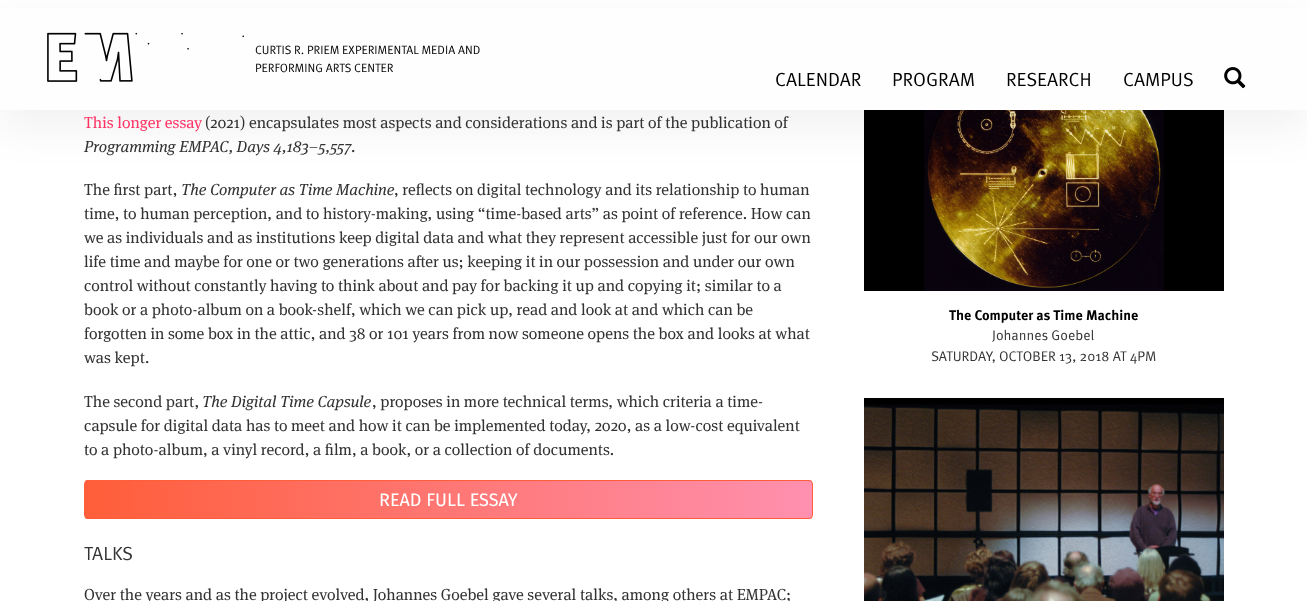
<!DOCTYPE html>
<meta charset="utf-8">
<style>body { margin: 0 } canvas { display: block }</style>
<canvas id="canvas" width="1307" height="601"></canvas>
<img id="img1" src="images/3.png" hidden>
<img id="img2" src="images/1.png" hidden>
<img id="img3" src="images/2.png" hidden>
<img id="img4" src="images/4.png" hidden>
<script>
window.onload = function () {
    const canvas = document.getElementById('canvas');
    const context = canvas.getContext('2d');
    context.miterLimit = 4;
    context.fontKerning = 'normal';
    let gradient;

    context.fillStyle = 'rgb(255, 255, 255)';
    context.fillRect(0, 0, 1307, 601);
    context.drawImage(document.getElementById('img1'), 864, 110, 360, 181);
    context.fillStyle = 'rgba(0, 0, 0, 0.05)';
    context.filter = 'blur(20px)';
    context.beginPath();
    context.rect(0, 20, 1307, 110);
    context.fill();
    context.filter = 'none';
    context.fillStyle = 'rgb(254, 254, 254)';
    context.fillRect(0, 8, 1307, 102);
    context.drawImage(document.getElementById('img2'), 47, 32, 197, 50);
    context.drawImage(document.getElementById('img3'), 1224, 67, 22, 22);
    context.save();
    context.beginPath();
    context.roundRect(84, 480, 729, 39, 4);
    context.clip();
    gradient = context.createLinearGradient(85, 500, 812, 500);
    gradient.addColorStop(0.01, 'rgb(255, 94, 58)');
    gradient.addColorStop(1, 'rgb(255, 144, 175)');
    context.fillStyle = gradient;
    context.fillRect(85, 480, 727, 39);
    context.restore();
    context.beginPath();
    context.roundRect(84.5, 480.5, 728, 38, 3.5);
    context.strokeStyle = 'rgb(255, 94, 58)';
    context.stroke();
    context.drawImage(document.getElementById('img4'), 864, 398, 360, 203);
    context.font = '12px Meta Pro';
    context.fillStyle = 'rgb(0, 0, 0)';
    context.fillText('CURTIS R. PRIEM EXPERIMENTAL MEDIA AND', 255, 54);
    context.fillText('PERFORMING ARTS CENTER', 255, 72);
    context.font = '19px Meta Pro';
    context.fillText('CALENDAR', 775, 86);
    context.fillText('PROGRAM', 892, 86);
    context.fillText('RESEARCH', 1006, 86);
    context.fillText('CAMPUS', 1123, 86);
    context.font = '16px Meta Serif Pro';
    context.fillStyle = 'rgb(255, 52, 102)';
    context.fillText('This longer essay', 84, 128);
    context.fillStyle = 'rgb(51, 51, 51)';
    context.fillText('(2021) encapsulates most aspects and considerations and is part of the publication of', 205, 128);
    context.font = 'italic 16px Meta Serif Pro';
    context.fillText('Programming EMPAC, Days 4,183–5,557', 84, 152);
    context.font = '16px Meta Serif Pro';
    context.fillText('.', 351, 152);
    context.fillText('The first part,', 84, 195);
    context.font = 'italic 16px Meta Serif Pro';
    context.fillText('The Computer as Time Machine', 181, 195);
    context.font = '16px Meta Serif Pro';
    context.fillText(', reflects on digital technology and its relationship to human', 394, 195);
    context.fillText('time, to human perception, and to history-making, using “time-based arts” as point of reference. How can', 84, 219);
    context.fillText('we as individuals and as institutions keep digital data and what they represent accessible just for our own', 84, 243);
    context.fillText('life time and maybe for one or two generations after us; keeping it in our possession and under our own', 84, 267);
    context.fillText('control without constantly having to think about and pay for backing it up and copying it; similar to a', 84, 291);
    context.fillText('book or a photo-album on a book-shelf, which we can pick up, read and look at and which can be', 84, 315);
    context.fillText('forgotten in some box in the attic, and 38 or 101 years from now someone opens the box and looks at what', 84, 339);
    context.fillText('was kept.', 84, 363);
    context.fillText('The second part,', 84, 407);
    context.font = 'italic 16px Meta Serif Pro';
    context.fillText('The Digital Time Capsule', 202, 407);
    context.font = '16px Meta Serif Pro';
    context.fillText(', proposes in more technical terms, which criteria a time-', 372, 407);
    context.fillText('capsule for digital data has to meet and how it can be implemented today, 2020, as a low-cost equivalent', 84, 431);
    context.fillText('to a photo-album, a vinyl record, a film, a book, or a collection of documents.', 84, 455);
    context.font = '18px Fira Sans';
    context.fillStyle = 'rgb(255, 255, 255)';
    context.fillText('READ FULL ESSAY', 379, 506);
    context.font = '19px Meta Pro';
    context.fillStyle = 'rgb(51, 51, 51)';
    context.fillText('TALKS', 84, 560);
    context.font = '16px Meta Serif Pro';
    context.fillText('Over the years and as the project evolved, Johannes Goebel gave several talks, among others at EMPAC;', 84, 600);
    context.font = 'bold 14px Meta Pro';
    context.fillStyle = 'rgb(0, 0, 0)';
    context.fillText('The Computer as Time Machine', 949, 320);
    context.font = '14px Meta Pro';
    context.fillStyle = 'rgb(51, 51, 51)';
    context.fillText('Johannes Goebel', 992, 340);
    context.fillText('SATURDAY, OCTOBER 13, 2018 AT 4PM', 931, 361);
};
</script>
